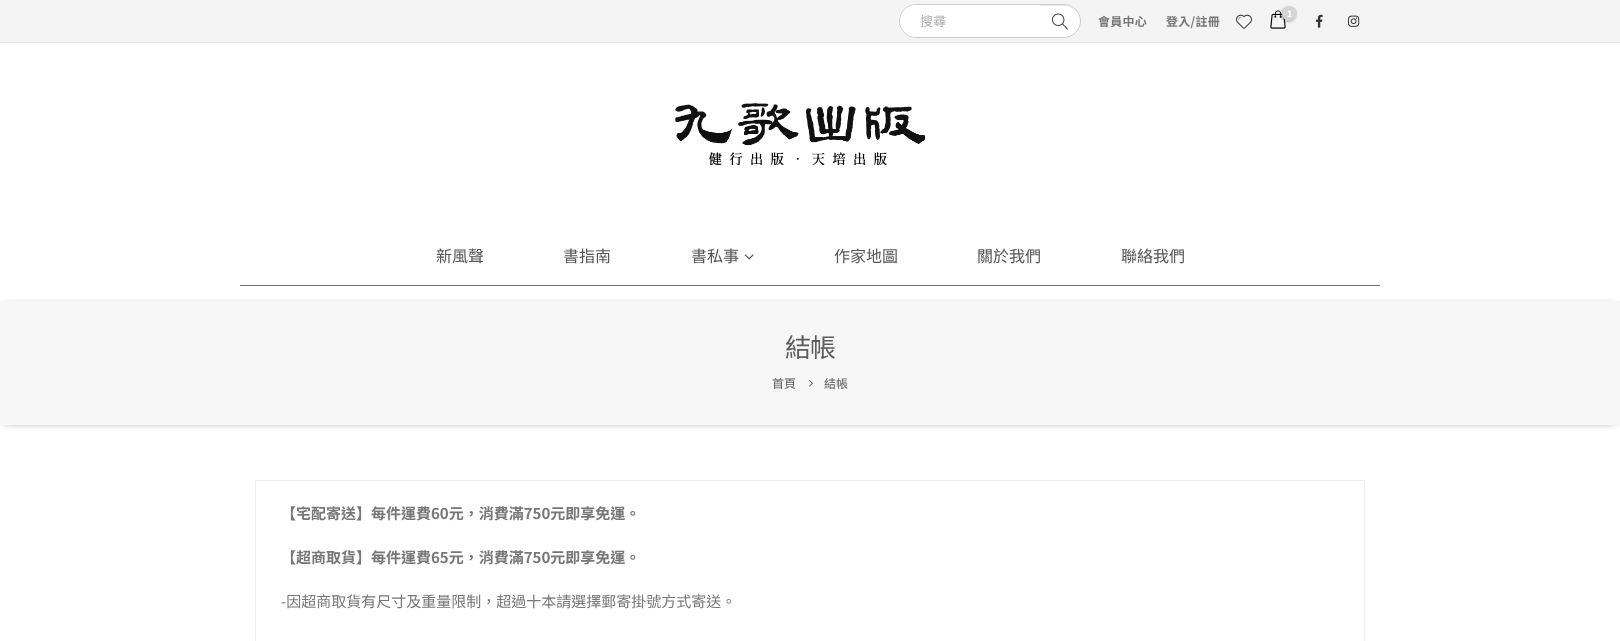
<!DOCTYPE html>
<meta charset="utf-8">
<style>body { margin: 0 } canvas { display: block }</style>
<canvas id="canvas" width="1620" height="641"></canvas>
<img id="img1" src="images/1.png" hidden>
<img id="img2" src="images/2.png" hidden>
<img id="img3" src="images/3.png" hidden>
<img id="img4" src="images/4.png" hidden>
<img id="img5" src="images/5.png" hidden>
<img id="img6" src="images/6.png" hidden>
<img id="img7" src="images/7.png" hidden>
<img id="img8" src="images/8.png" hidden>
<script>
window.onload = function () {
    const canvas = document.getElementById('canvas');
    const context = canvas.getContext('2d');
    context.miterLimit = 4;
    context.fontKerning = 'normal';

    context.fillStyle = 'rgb(255, 255, 255)';
    context.fillRect(0, 0, 1620, 641);
    context.fillStyle = 'rgb(244, 244, 244)';
    context.fillRect(0, 0, 1620, 42);
    context.fillStyle = 'rgb(231, 231, 231)';
    context.fillRect(0, 42, 1620, 1);
    context.fillStyle = 'rgb(255, 255, 255)';
    context.beginPath();
    context.roundRect(899, 4, 182, 34, 17);
    context.fill();
    context.fillStyle = 'rgb(236, 236, 236)';
    context.beginPath();
    context.moveTo(916, 6);
    context.lineTo(1064, 6);
    context.bezierCurveTo(1073, 6, 1080, 13, 1080, 21);
    context.bezierCurveTo(1081, 0, 1052, 5, 1039, 5);
    context.lineTo(941, 5);
    context.bezierCurveTo(928, 5, 899, 0, 900, 21);
    context.bezierCurveTo(900, 13, 907, 6, 916, 6);
    context.closePath();
    context.fill();
    context.beginPath();
    context.roundRect(899.5, 4.5, 181, 33, 16.5);
    context.strokeStyle = 'rgb(204, 204, 204)';
    context.stroke();
    context.save();
    context.beginPath();
    context.roundRect(900, 5, 180, 32, 16);
    context.clip();
    context.fillStyle = 'rgb(255, 255, 255)';
    context.beginPath();
    context.roundRect(900, 5, 140, 30, [16, 0, 0, 15]);
    context.fill();
    context.restore();
    context.drawImage(document.getElementById('img1'), 1052, 13, 16, 17);
    context.drawImage(document.getElementById('img2'), 1236, 14, 16, 15);
    context.drawImage(document.getElementById('img3'), 1270, 10, 16, 19);
    context.fillStyle = 'rgba(0, 0, 0, 0.3)';
    context.filter = 'blur(1px)';
    context.beginPath();
    context.roundRect(1281, 7, 15, 15, 7.5);
    context.fill();
    context.filter = 'none';
    context.fillStyle = 'rgb(213, 213, 213)';
    context.beginPath();
    context.arc(1289.5, 13.5, 7.5, 0, 2 * Math.PI);
    context.fill();
    context.drawImage(document.getElementById('img4'), 1316, 14, 7, 14);
    context.drawImage(document.getElementById('img5'), 1348, 15, 12, 12);
    context.drawImage(document.getElementById('img6'), 675, 103, 250, 62);
    context.fillStyle = 'rgb(112, 112, 112)';
    context.fillRect(240, 285, 1140, 1);
    context.drawImage(document.getElementById('img7'), 744, 254, 10, 6);
    context.fillStyle = 'rgba(0, 0, 0, 0.75)';
    context.filter = 'blur(4px)';
    context.beginPath();
    context.rect(5, 307, 1610, 114);
    context.fill();
    context.filter = 'none';
    context.fillStyle = 'rgb(247, 247, 247)';
    context.fillRect(0, 301, 1620, 124);
    context.drawImage(document.getElementById('img8'), 809, 380, 4, 7);
    context.strokeStyle = 'rgb(237, 237, 237)';
    context.strokeRect(255.5, 480.5, 1109, 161);
    context.font = '13px Noto Sans TC';
    context.fillStyle = 'rgb(175, 175, 175)';
    context.fillText('搜尋', 920, 26);
    context.letterSpacing = '0.25px';
    context.font = 'bold 12px Noto Sans TC';
    context.fillStyle = 'rgb(119, 119, 119)';
    context.fillText('會員中心', 1098, 26);
    context.fillText('登入/註冊', 1166, 26);
    context.letterSpacing = '0px';
    context.font = 'bold 9px Noto Sans TC';
    context.fillStyle = 'rgb(255, 255, 255)';
    context.fillText('1', 1287, 17);
    context.font = '16px Noto Sans TC';
    context.fillStyle = 'rgb(85, 85, 85)';
    context.fillText('新風聲', 436, 262);
    context.fillText('書指南', 563, 262);
    context.fillText('書私事', 691, 262);
    context.fillText('作家地圖', 834, 262);
    context.fillText('關於我們', 977, 262);
    context.fillText('聯絡我們', 1121, 262);
    context.letterSpacing = '-1px';
    context.font = '26px Noto Sans TC';
    context.fillStyle = 'rgb(92, 92, 92)';
    context.fillText('結帳', 785, 357);
    context.letterSpacing = '0px';
    context.font = '12px Noto Sans TC';
    context.fillText('首頁', 772, 388);
    context.fillText('結帳', 824, 388);
    context.font = 'bold 15px Noto Sans TC';
    context.fillStyle = 'rgb(119, 119, 119)';
    context.fillText('【宅配寄送】每件運費60元，消費滿750元即享免運。', 281, 519);
    context.fillText('【超商取貨】每件運費65元，消費滿750元即享免運。', 281, 563);
    context.font = '15px Noto Sans TC';
    context.fillText('-因超商取貨有尺寸及重量限制，超過十本請選擇郵寄掛號方式寄送。', 281, 607);
};
</script>
